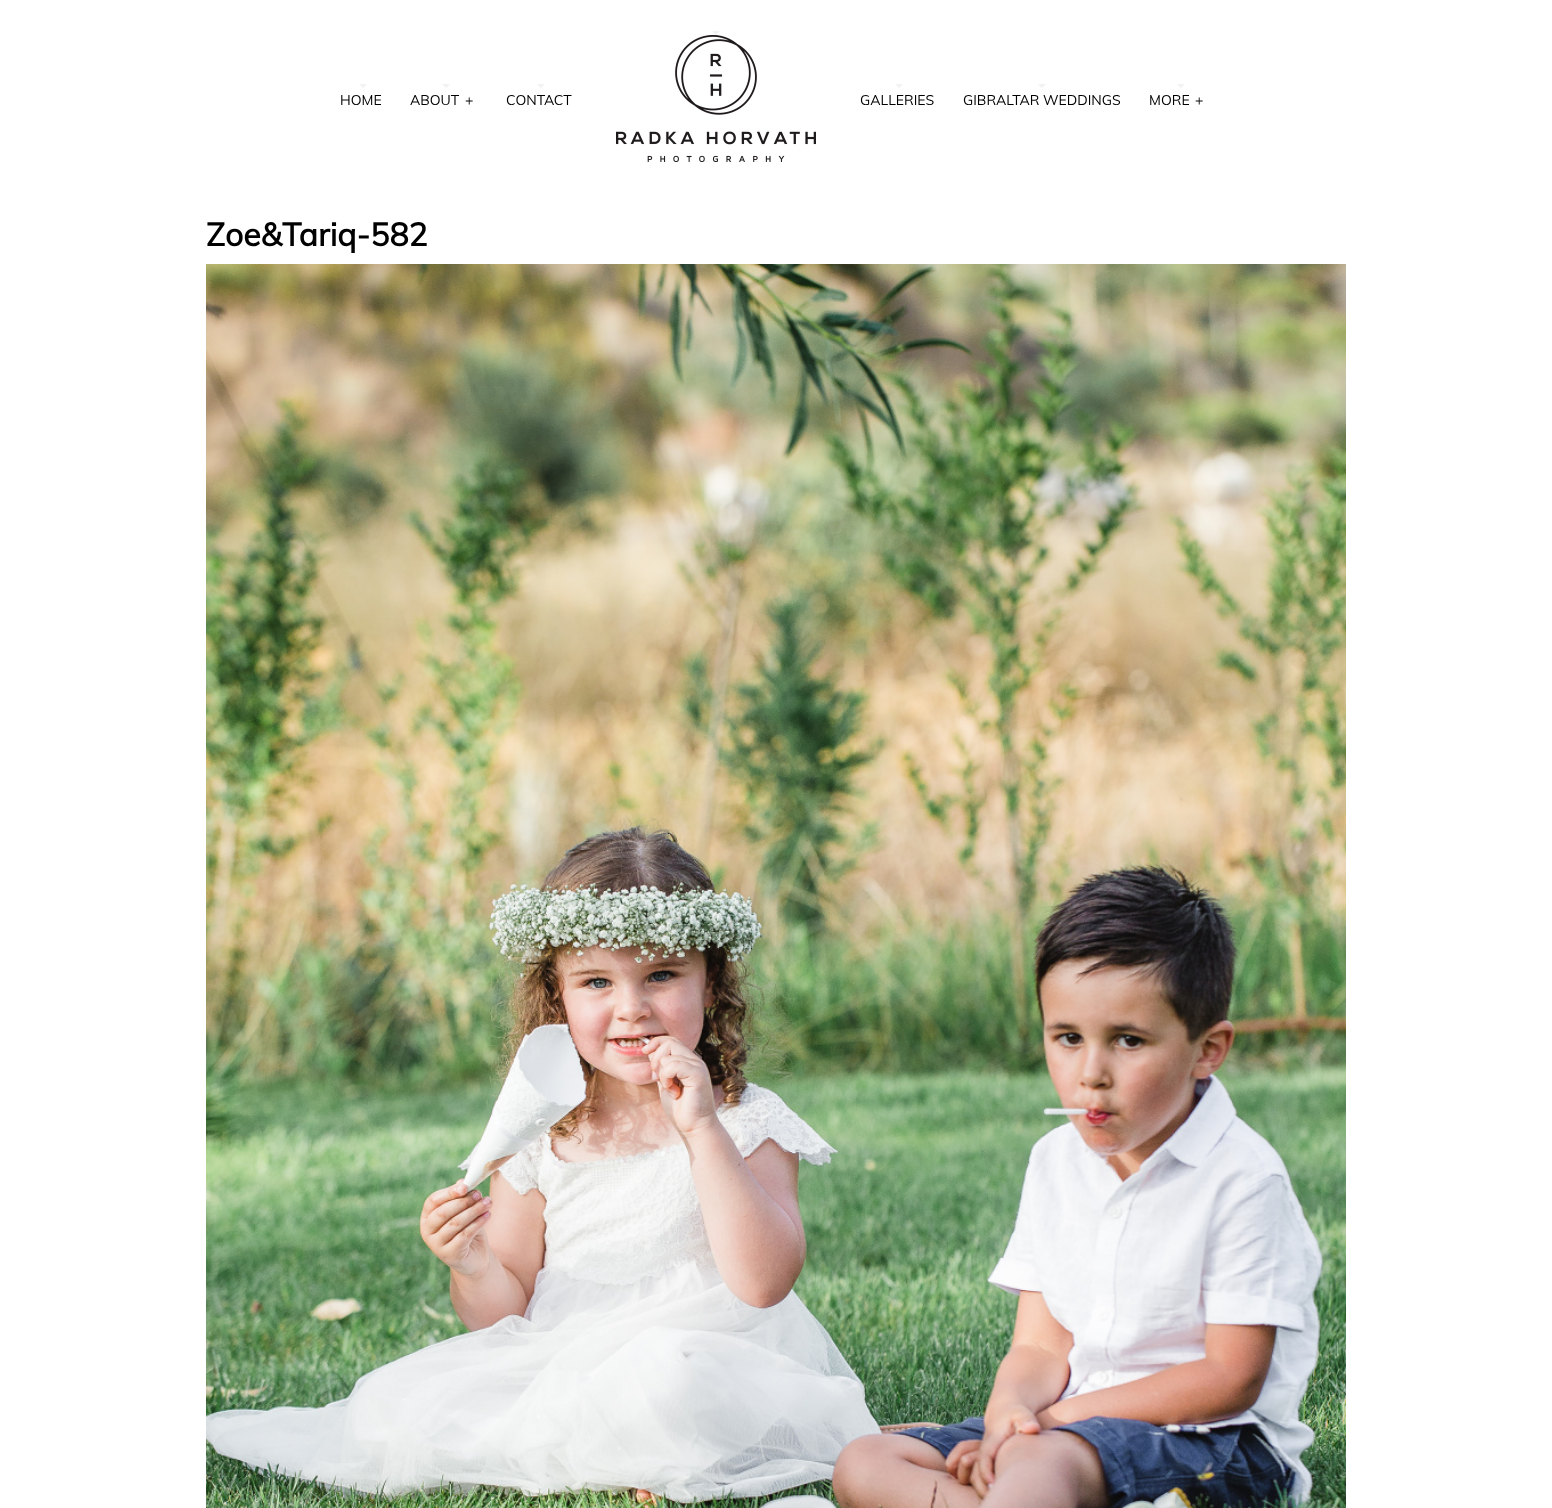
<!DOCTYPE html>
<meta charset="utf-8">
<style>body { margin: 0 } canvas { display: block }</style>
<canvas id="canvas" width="1552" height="1508"></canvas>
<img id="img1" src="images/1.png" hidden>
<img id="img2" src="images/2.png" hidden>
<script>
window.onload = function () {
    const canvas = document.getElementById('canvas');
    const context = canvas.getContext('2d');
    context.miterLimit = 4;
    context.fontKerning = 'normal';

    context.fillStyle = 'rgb(255, 255, 255)';
    context.fillRect(0, 0, 1552, 1508);
    context.fillStyle = 'rgb(242, 242, 242)';
    context.beginPath();
    context.moveTo(359, 84);
    context.lineTo(367, 84);
    context.lineTo(363, 88);
    context.closePath();
    context.fill();
    context.beginPath();
    context.moveTo(442, 84);
    context.lineTo(450, 84);
    context.lineTo(446, 88);
    context.closePath();
    context.fill();
    context.beginPath();
    context.moveTo(537, 84);
    context.lineTo(545, 84);
    context.lineTo(541, 88);
    context.closePath();
    context.fill();
    context.beginPath();
    context.moveTo(712, 31);
    context.lineTo(720, 31);
    context.lineTo(716, 35);
    context.closePath();
    context.fill();
    context.drawImage(document.getElementById('img1'), 616, 35, 200, 127);
    context.beginPath();
    context.moveTo(895, 84);
    context.lineTo(903, 84);
    context.lineTo(899, 88);
    context.closePath();
    context.fill();
    context.beginPath();
    context.moveTo(1038, 84);
    context.lineTo(1046, 84);
    context.lineTo(1042, 88);
    context.closePath();
    context.fill();
    context.beginPath();
    context.moveTo(1177, 84);
    context.lineTo(1185, 84);
    context.lineTo(1181, 88);
    context.closePath();
    context.fill();
    context.drawImage(document.getElementById('img2'), 206, 264, 1140, 1244);
    context.font = '14px Muli';
    context.fillStyle = 'rgb(0, 0, 0)';
    context.fillText('HOME', 340, 105);
    context.fillText('ABOUT', 410, 105);
    context.fillText('+', 465, 105);
    context.fillText('CONTACT', 506, 105);
    context.fillText('GALLERIES', 860, 105);
    context.fillText('GIBRALTAR WEDDINGS', 963, 105);
    context.fillText('MORE', 1149, 105);
    context.fillText('+', 1195, 105);
    context.font = 'bold 32px Muli';
    context.fillText('Zoe&Tariq-582', 206, 246);
};
</script>
